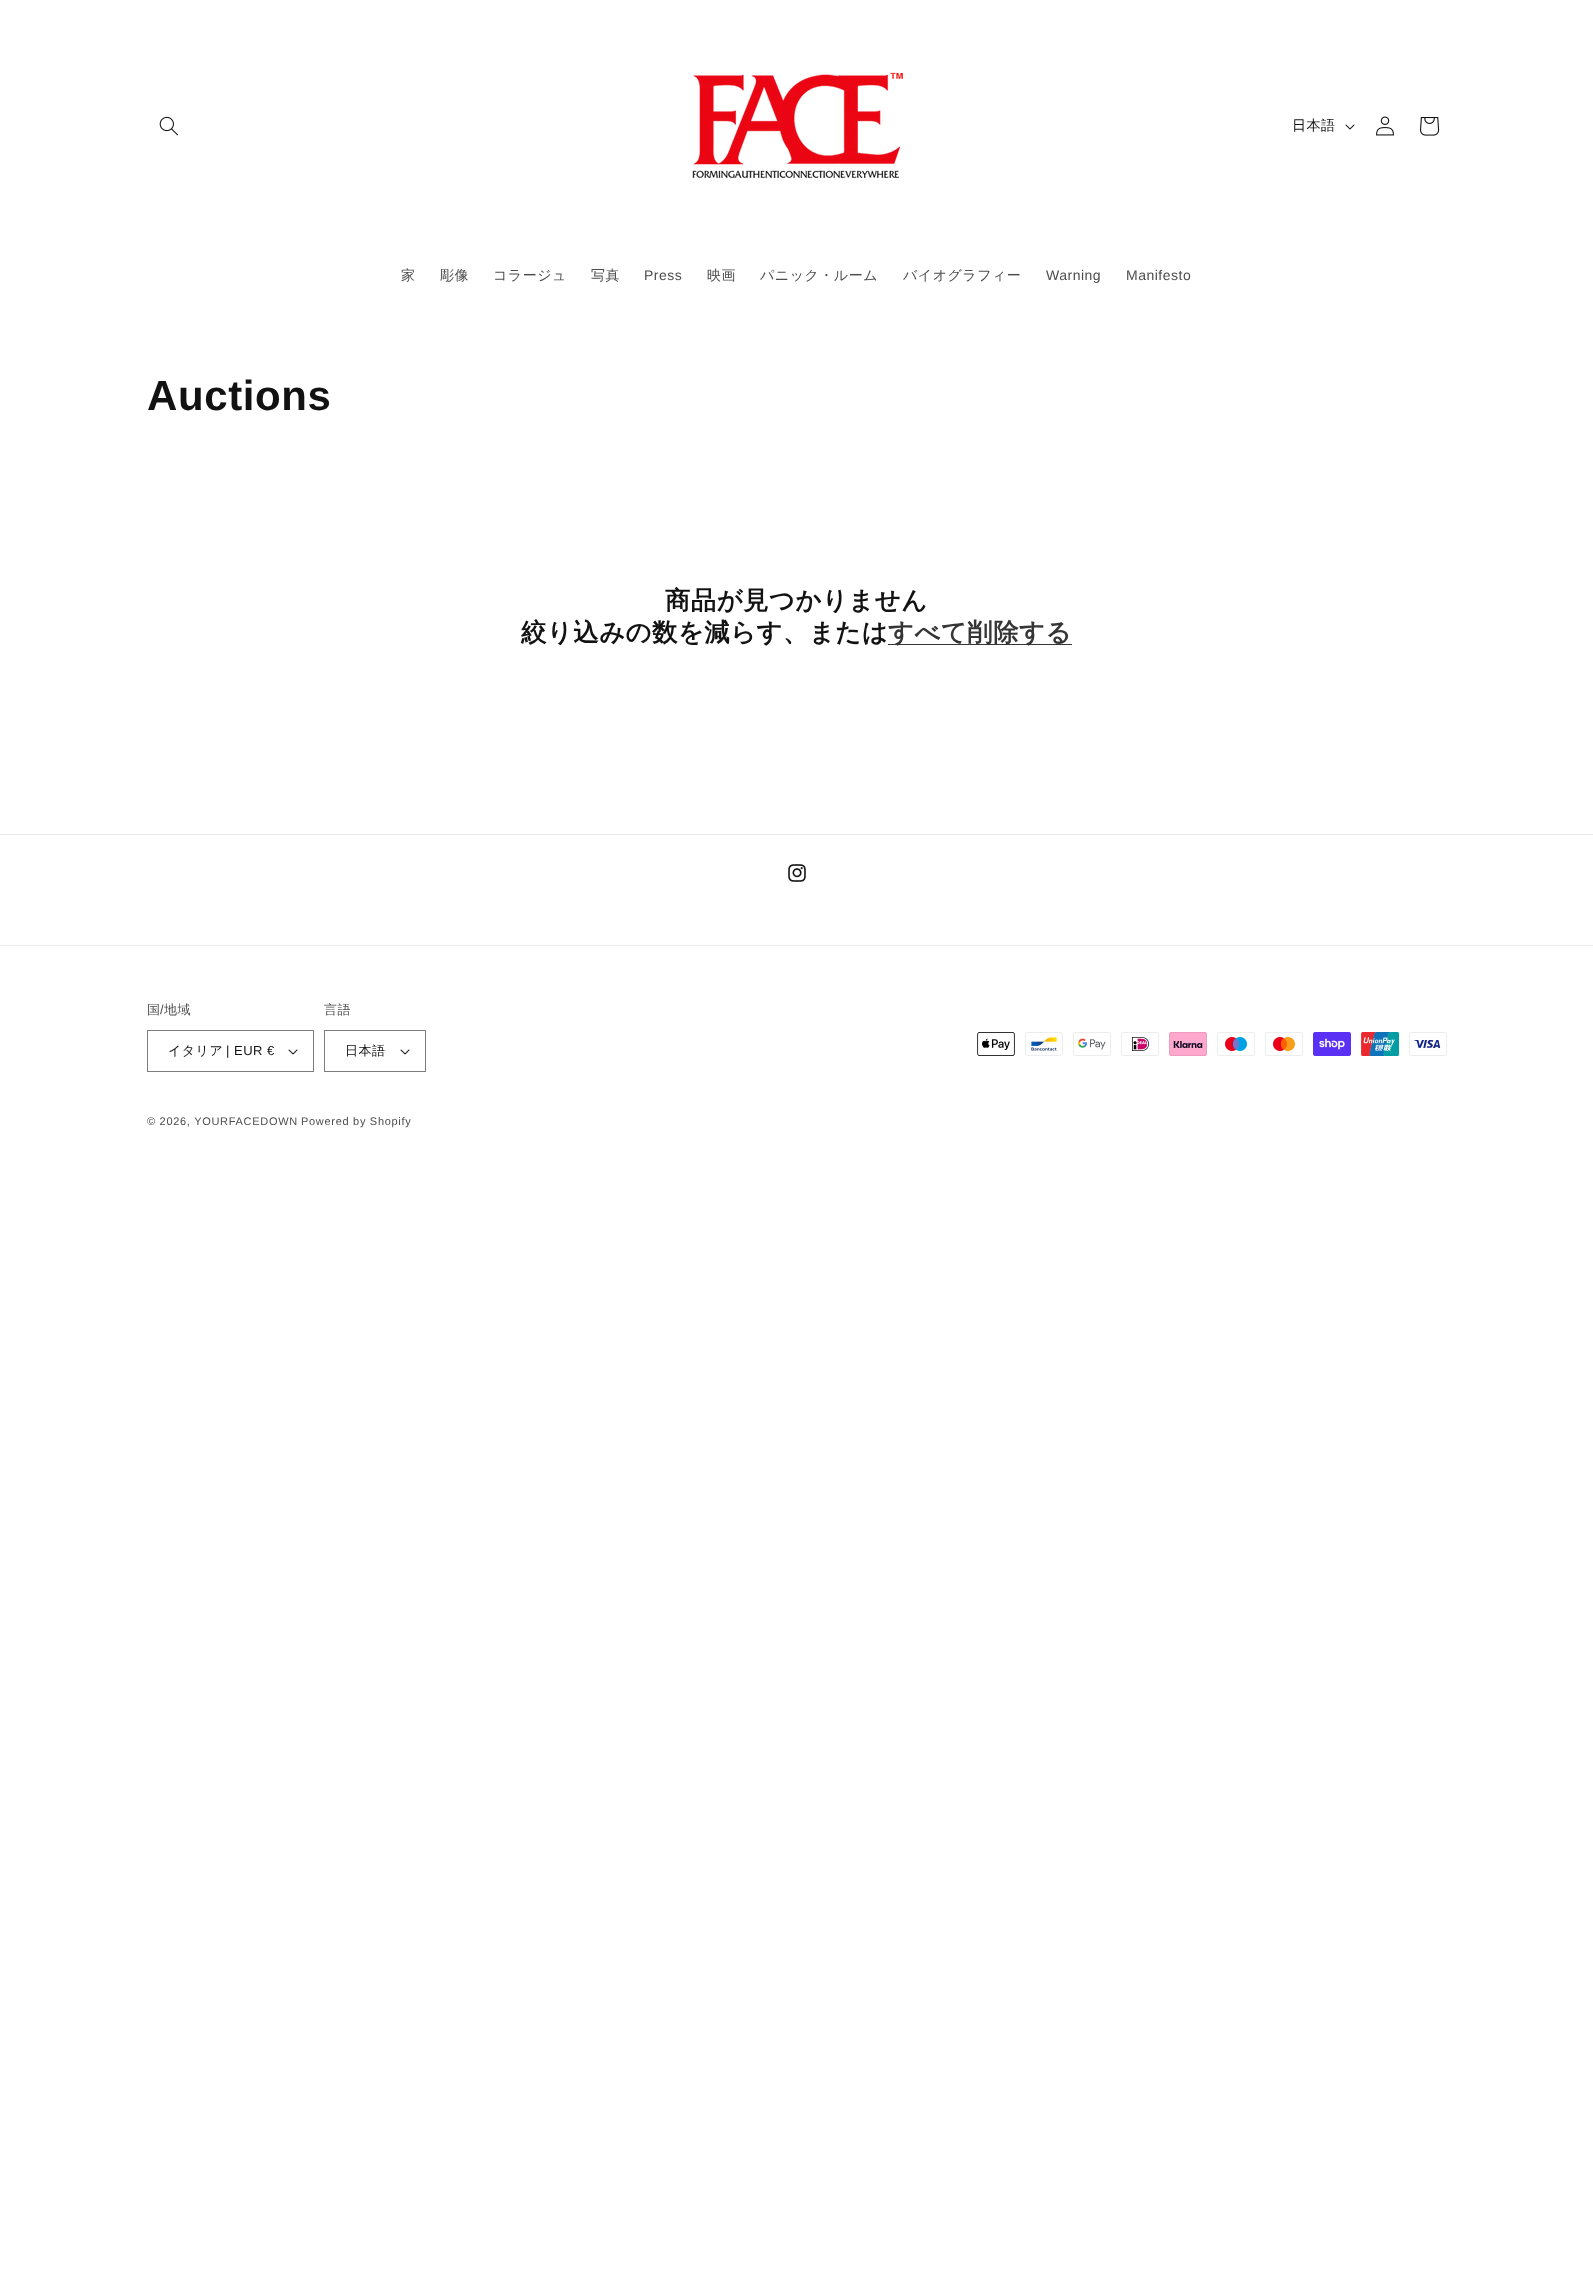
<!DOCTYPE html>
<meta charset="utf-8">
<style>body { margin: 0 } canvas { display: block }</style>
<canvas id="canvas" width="1593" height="2273"></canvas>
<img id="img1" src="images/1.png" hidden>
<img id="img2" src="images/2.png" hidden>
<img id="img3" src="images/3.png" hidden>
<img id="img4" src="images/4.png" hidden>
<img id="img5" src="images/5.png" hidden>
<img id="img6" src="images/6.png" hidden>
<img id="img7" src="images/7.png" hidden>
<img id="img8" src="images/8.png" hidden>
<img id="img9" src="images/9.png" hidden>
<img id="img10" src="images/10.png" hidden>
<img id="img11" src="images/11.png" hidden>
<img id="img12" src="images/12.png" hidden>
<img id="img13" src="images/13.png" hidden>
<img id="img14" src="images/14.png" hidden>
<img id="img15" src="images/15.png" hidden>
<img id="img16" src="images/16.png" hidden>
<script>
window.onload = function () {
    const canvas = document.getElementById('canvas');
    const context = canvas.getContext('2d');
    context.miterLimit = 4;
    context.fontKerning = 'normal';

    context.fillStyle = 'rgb(255, 255, 255)';
    context.fillRect(0, 0, 1593, 2273);
    context.drawImage(document.getElementById('img1'), 159, 116, 19, 20);
    context.drawImage(document.getElementById('img2'), 692, 72, 211, 107);
    context.drawImage(document.getElementById('img3'), 1345, 124, 10, 6);
    context.drawImage(document.getElementById('img4'), 1376, 116, 18, 20);
    context.drawImage(document.getElementById('img5'), 1420, 117, 20, 19);
    context.fillStyle = 'rgb(54, 54, 54)';
    context.fillRect(888, 644, 184, 1);
    context.fillStyle = 'rgb(236, 236, 236)';
    context.fillRect(0, 834, 1593, 1);
    context.drawImage(document.getElementById('img6'), 788, 864, 18, 18);
    context.fillRect(0, 945, 1593, 1);
    context.drawImage(document.getElementById('img3'), 288, 1049, 10, 6);
    context.strokeStyle = 'rgb(125, 125, 125)';
    context.strokeRect(147.5, 1030.5, 166, 41);
    context.drawImage(document.getElementById('img3'), 400, 1049, 10, 6);
    context.strokeRect(324.5, 1030.5, 101, 41);
    context.drawImage(document.getElementById('img7'), 977, 1032, 38, 24);
    context.drawImage(document.getElementById('img8'), 1025, 1032, 38, 24);
    context.drawImage(document.getElementById('img9'), 1073, 1032, 38, 24);
    context.drawImage(document.getElementById('img10'), 1121, 1032, 38, 24);
    context.drawImage(document.getElementById('img11'), 1169, 1032, 38, 24);
    context.drawImage(document.getElementById('img12'), 1217, 1032, 38, 24);
    context.drawImage(document.getElementById('img13'), 1265, 1032, 38, 24);
    context.drawImage(document.getElementById('img14'), 1313, 1032, 38, 24);
    context.drawImage(document.getElementById('img15'), 1361, 1032, 38, 24);
    context.drawImage(document.getElementById('img16'), 1409, 1032, 38, 24);
    context.letterSpacing = '0.5px';
    context.font = '500 14px WenQuanYi Zen Hei';
    context.fillStyle = 'rgb(18, 18, 18)';
    context.fillText('日本語', 1292, 130);
    context.fillStyle = 'rgb(77, 77, 77)';
    context.fillText('家', 401, 280);
    context.fillText('彫像', 440, 280);
    context.fillText('コラージュ', 493, 280);
    context.fillText('写真', 591, 280);
    context.font = '14px Liberation Sans';
    context.fillText('Press', 644, 280);
    context.font = '500 14px WenQuanYi Zen Hei';
    context.fillText('映画', 707, 280);
    context.fillText('パニック・ルーム', 760, 280);
    context.fillText('バイオグラフィー', 903, 280);
    context.font = '14px Liberation Sans';
    context.fillText('Warning', 1046, 280);
    context.fillText('Manifesto', 1126, 280);
    context.letterSpacing = '0.6px';
    context.font = 'bold 42px Liberation Sans';
    context.fillStyle = 'rgb(18, 18, 18)';
    context.fillText('Auctions', 147, 410);
    context.font = 'bold 25.25px WenQuanYi Zen Hei';
    context.fillText('商品が見つかりません', 665, 609);
    context.fillText('絞り込みの数を減らす、または', 521, 641);
    context.fillStyle = 'rgb(53, 53, 53)';
    context.fillText('すべて削除する', 888, 641);
    context.letterSpacing = '0.5px';
    context.font = '500 13px WenQuanYi Zen Hei';
    context.fillStyle = 'rgb(77, 77, 77)';
    context.fillText('国', 147, 1014);
    context.font = '13px Liberation Sans';
    context.fillText('/', 160, 1014);
    context.font = '500 13px WenQuanYi Zen Hei';
    context.fillText('地域', 164, 1014);
    context.fillStyle = 'rgb(18, 18, 18)';
    context.fillText('イタリア', 168, 1055);
    context.font = '13px Liberation Sans';
    context.fillText('| EUR €', 226, 1055);
    context.font = '500 13px WenQuanYi Zen Hei';
    context.fillStyle = 'rgb(77, 77, 77)';
    context.fillText('言語', 324, 1014);
    context.fillStyle = 'rgb(18, 18, 18)';
    context.fillText('日本語', 345, 1055);
    context.letterSpacing = '0.7px';
    context.font = '11px Liberation Sans';
    context.fillStyle = 'rgb(77, 77, 77)';
    context.fillText('© 2026, YOURFACEDOWN', 147, 1125);
    context.fillText('Powered by Shopify', 301, 1125);
};
</script>
